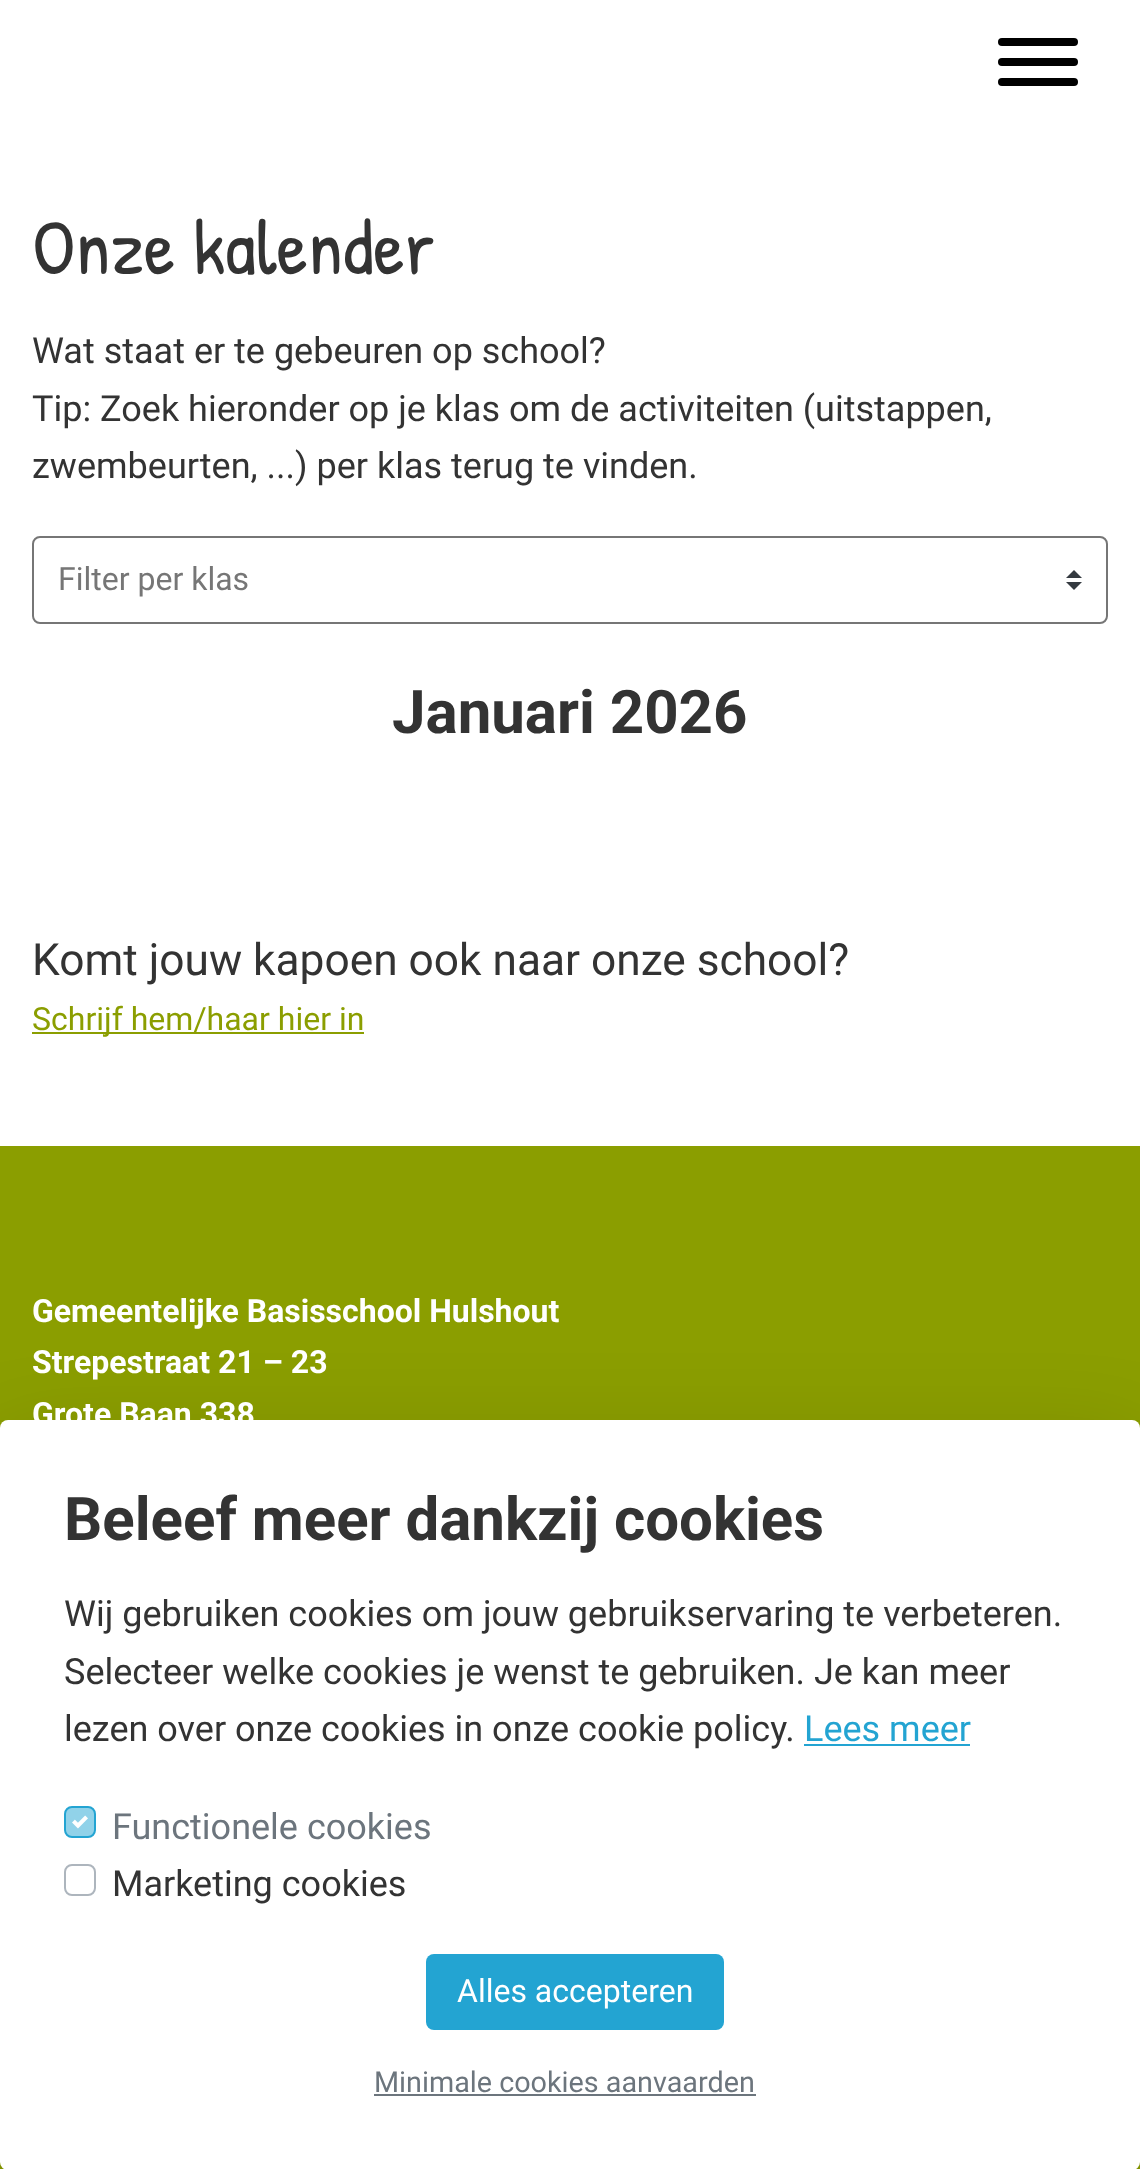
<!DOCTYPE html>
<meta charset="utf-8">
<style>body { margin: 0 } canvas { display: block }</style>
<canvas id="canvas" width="1140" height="2169"></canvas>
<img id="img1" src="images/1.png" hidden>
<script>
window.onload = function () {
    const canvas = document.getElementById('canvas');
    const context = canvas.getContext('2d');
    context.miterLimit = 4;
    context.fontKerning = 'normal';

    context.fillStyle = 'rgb(255, 255, 255)';
    context.fillRect(0, 0, 1140, 2169);
    context.fillStyle = 'rgb(0, 0, 0)';
    context.beginPath();
    context.roundRect(998, 58, 80, 8, 4);
    context.fill();
    context.beginPath();
    context.roundRect(998, 38, 80, 8, 4);
    context.fill();
    context.beginPath();
    context.roundRect(998, 78, 80, 8, 4);
    context.fill();
    context.fillStyle = 'rgb(52, 58, 64)';
    context.beginPath();
    context.moveTo(1074, 570);
    context.lineTo(1066, 578);
    context.lineTo(1082, 578);
    context.closePath();
    context.moveTo(1074, 590);
    context.lineTo(1066, 582);
    context.lineTo(1082, 582);
    context.closePath();
    context.fill();
    context.beginPath();
    context.roundRect(33, 537, 1074, 86, 7);
    context.strokeStyle = 'rgb(118, 118, 118)';
    context.lineWidth = 2;
    context.stroke();
    context.fillStyle = 'rgb(139, 158, 0)';
    context.fillRect(32, 1032, 332, 2);
    context.fillRect(0, 1146, 1140, 1023);
    context.fillStyle = 'rgba(0, 0, 0, 0.18)';
    context.filter = 'blur(48px)';
    context.beginPath();
    context.roundRect(0, 1452, 1140, 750, 8);
    context.fill();
    context.filter = 'none';
    context.fillStyle = 'rgb(255, 255, 255)';
    context.beginPath();
    context.roundRect(0, 1420, 1140, 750, 8);
    context.fill();
    context.fillStyle = 'rgb(35, 164, 210)';
    context.fillRect(804, 1744, 166, 2);
    context.fillStyle = 'rgb(145, 210, 233)';
    context.beginPath();
    context.roundRect(65, 1807, 30, 30, 7);
    context.fill();
    context.strokeStyle = 'rgb(35, 164, 210)';
    context.stroke();
    context.drawImage(document.getElementById('img1'), 72, 1815, 16, 14);
    context.beginPath();
    context.roundRect(65, 1865, 30, 30, 7);
    context.strokeStyle = 'rgb(173, 181, 189)';
    context.stroke();
    context.fillStyle = 'rgb(35, 164, 210)';
    context.beginPath();
    context.roundRect(426, 1954, 298, 76, 8);
    context.fill();
    context.fillStyle = 'rgb(108, 117, 125)';
    context.fillRect(374, 2094, 382, 2);
    context.font = '78px Patrick Hand';
    context.fillStyle = 'rgb(51, 51, 51)';
    context.fillText('Onze kalender', 32, 274);
    context.font = '36px Roboto';
    context.fillText('Wat staat er te gebeuren op school?', 32, 363);
    context.fillText('Tip: Zoek hieronder op je klas om de activiteiten (uitstappen,', 32, 421);
    context.fillText('zwembeurten, ...) per klas terug te vinden.', 32, 478);
    context.font = '32px Roboto';
    context.fillStyle = 'rgb(118, 118, 118)';
    context.fillText('Filter per klas', 58, 590);
    context.font = 'bold 60px Roboto';
    context.fillStyle = 'rgb(51, 51, 51)';
    context.fillText('Januari 2026', 392, 733);
    context.font = '44.25px Roboto';
    context.fillText('Komt jouw kapoen ook naar onze school?', 32, 975);
    context.font = '32px Roboto';
    context.fillStyle = 'rgb(139, 158, 0)';
    context.fillText('Schrijf hem/haar hier in', 32, 1030);
    context.font = 'bold 32px Roboto';
    context.fillStyle = 'rgb(255, 255, 255)';
    context.fillText('Gemeentelijke Basisschool Hulshout', 32, 1322);
    context.fillText('Strepestraat 21 – 23', 32, 1373);
    context.fillText('Grote Baan 338', 32, 1425);
    context.font = 'bold 60px Roboto';
    context.fillStyle = 'rgb(51, 51, 51)';
    context.fillText('Beleef meer dankzij cookies', 64, 1540);
    context.font = '36px Roboto';
    context.fillText('Wij gebruiken cookies om jouw gebruikservaring te verbeteren.', 64, 1626);
    context.fillText('Selecteer welke cookies je wenst te gebruiken. Je kan meer', 64, 1684);
    context.fillText('lezen over onze cookies in onze cookie policy.', 64, 1741);
    context.fillStyle = 'rgb(35, 164, 210)';
    context.fillText('Lees meer', 804, 1741);
    context.fillStyle = 'rgb(108, 117, 125)';
    context.fillText('Functionele cookies', 112, 1839);
    context.fillStyle = 'rgb(51, 51, 51)';
    context.fillText('Marketing cookies', 112, 1896);
    context.font = '32px Roboto';
    context.fillStyle = 'rgb(255, 255, 255)';
    context.fillText('Alles accepteren', 457, 2002);
    context.font = '28.75px Roboto';
    context.fillStyle = 'rgb(108, 117, 125)';
    context.fillText('Minimale cookies aanvaarden', 374, 2092);
};
</script>
